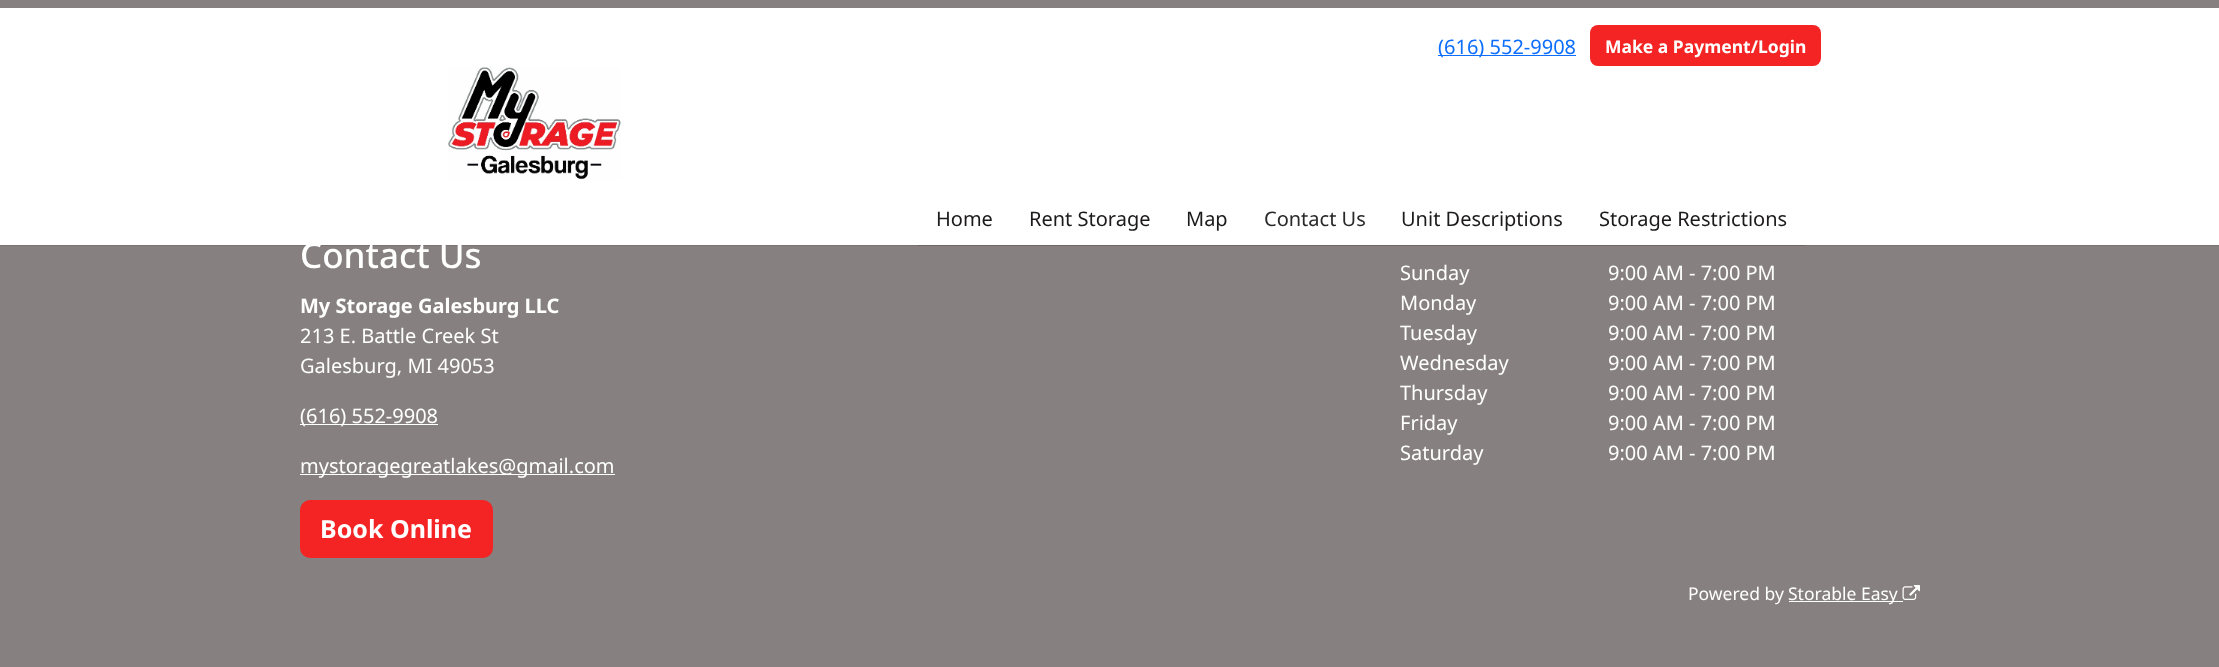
<!DOCTYPE html>
<meta charset="utf-8">
<style>body { margin: 0 } canvas { display: block }</style>
<canvas id="canvas" width="2219" height="667"></canvas>
<img id="img1" src="images/1.png" hidden>
<img id="img2" src="images/2.png" hidden>
<script>
window.onload = function () {
    const canvas = document.getElementById('canvas');
    const context = canvas.getContext('2d');
    context.miterLimit = 4;
    context.fontKerning = 'normal';

    context.fillStyle = 'rgb(135, 128, 128)';
    context.fillRect(0, 0, 2219, 667);
    context.fillStyle = 'rgba(0, 0, 0, 0.1)';
    context.fillRect(0, 245, 2219, 1);
    context.fillStyle = 'rgb(255, 255, 255)';
    context.fillRect(0, 8, 2219, 237);
    context.fillStyle = 'rgb(13, 110, 253)';
    context.fillRect(1438, 55, 138, 1);
    context.fillStyle = 'rgb(244, 36, 36)';
    context.beginPath();
    context.roundRect(1590, 25, 231, 41, 8);
    context.fill();
    context.drawImage(document.getElementById('img1'), 448, 67, 173, 113);
    context.fillStyle = 'rgba(0, 0, 0, 0.1)';
    context.fillRect(918, 245, 887, 1);
    context.fillStyle = 'rgb(255, 255, 255)';
    context.fillRect(300, 424, 138, 1);
    context.fillRect(300, 474, 315, 1);
    context.fillStyle = 'rgb(244, 36, 36)';
    context.beginPath();
    context.roundRect(300, 500, 193, 58, 10);
    context.fill();
    context.fillStyle = 'rgb(255, 255, 255)';
    context.fillRect(1789, 601, 114, 1);
    context.drawImage(document.getElementById('img2'), 1902, 585, 18, 15);
    context.font = '20px Noto Sans';
    context.fillStyle = 'rgb(13, 110, 253)';
    context.fillText('(616) 552-9908', 1438, 54);
    context.font = 'bold 17.5px Noto Sans';
    context.fillStyle = 'rgb(255, 255, 255)';
    context.fillText('Make a Payment/Login', 1605, 53);
    context.font = '20px Noto Sans';
    context.fillStyle = 'rgb(28, 26, 26)';
    context.fillText('Home', 936, 226);
    context.fillText('Rent Storage', 1029, 226);
    context.fillText('Map', 1186, 226);
    context.fillStyle = 'rgb(42, 41, 41)';
    context.fillText('Contact Us', 1264, 226);
    context.fillStyle = 'rgb(28, 26, 26)';
    context.fillText('Unit Descriptions', 1401, 226);
    context.fillText('Storage Restrictions', 1599, 226);
    context.font = '500 35px Noto Sans';
    context.fillStyle = 'rgb(255, 255, 255)';
    context.fillText('Contact Us', 300, 268);
    context.font = 'bold 20px Noto Sans';
    context.fillText('My Storage Galesburg LLC', 300, 313);
    context.font = '20px Noto Sans';
    context.fillText('213 E. Battle Creek St', 300, 343);
    context.fillText('Galesburg, MI 49053', 300, 373);
    context.fillText('(616) 552-9908', 300, 423);
    context.fillText('mystoragegreatlakes@gmail.com', 300, 473);
    context.fillText('Sunday', 1400, 280);
    context.fillText('9:00 AM - 7:00 PM', 1608, 280);
    context.fillText('Monday', 1400, 310);
    context.fillText('9:00 AM - 7:00 PM', 1608, 310);
    context.fillText('Tuesday', 1400, 340);
    context.fillText('9:00 AM - 7:00 PM', 1608, 340);
    context.fillText('Wednesday', 1400, 370);
    context.fillText('9:00 AM - 7:00 PM', 1608, 370);
    context.fillText('Thursday', 1400, 400);
    context.fillText('9:00 AM - 7:00 PM', 1608, 400);
    context.fillText('Friday', 1400, 430);
    context.fillText('9:00 AM - 7:00 PM', 1608, 430);
    context.fillText('Saturday', 1400, 460);
    context.fillText('9:00 AM - 7:00 PM', 1608, 460);
    context.font = 'bold 25px Noto Sans';
    context.fillText('Book Online', 320, 538);
    context.font = '17.5px Noto Sans';
    context.fillText('Powered by', 1688, 600);
    context.fillText('Storable Easy', 1788, 600);
};
</script>
